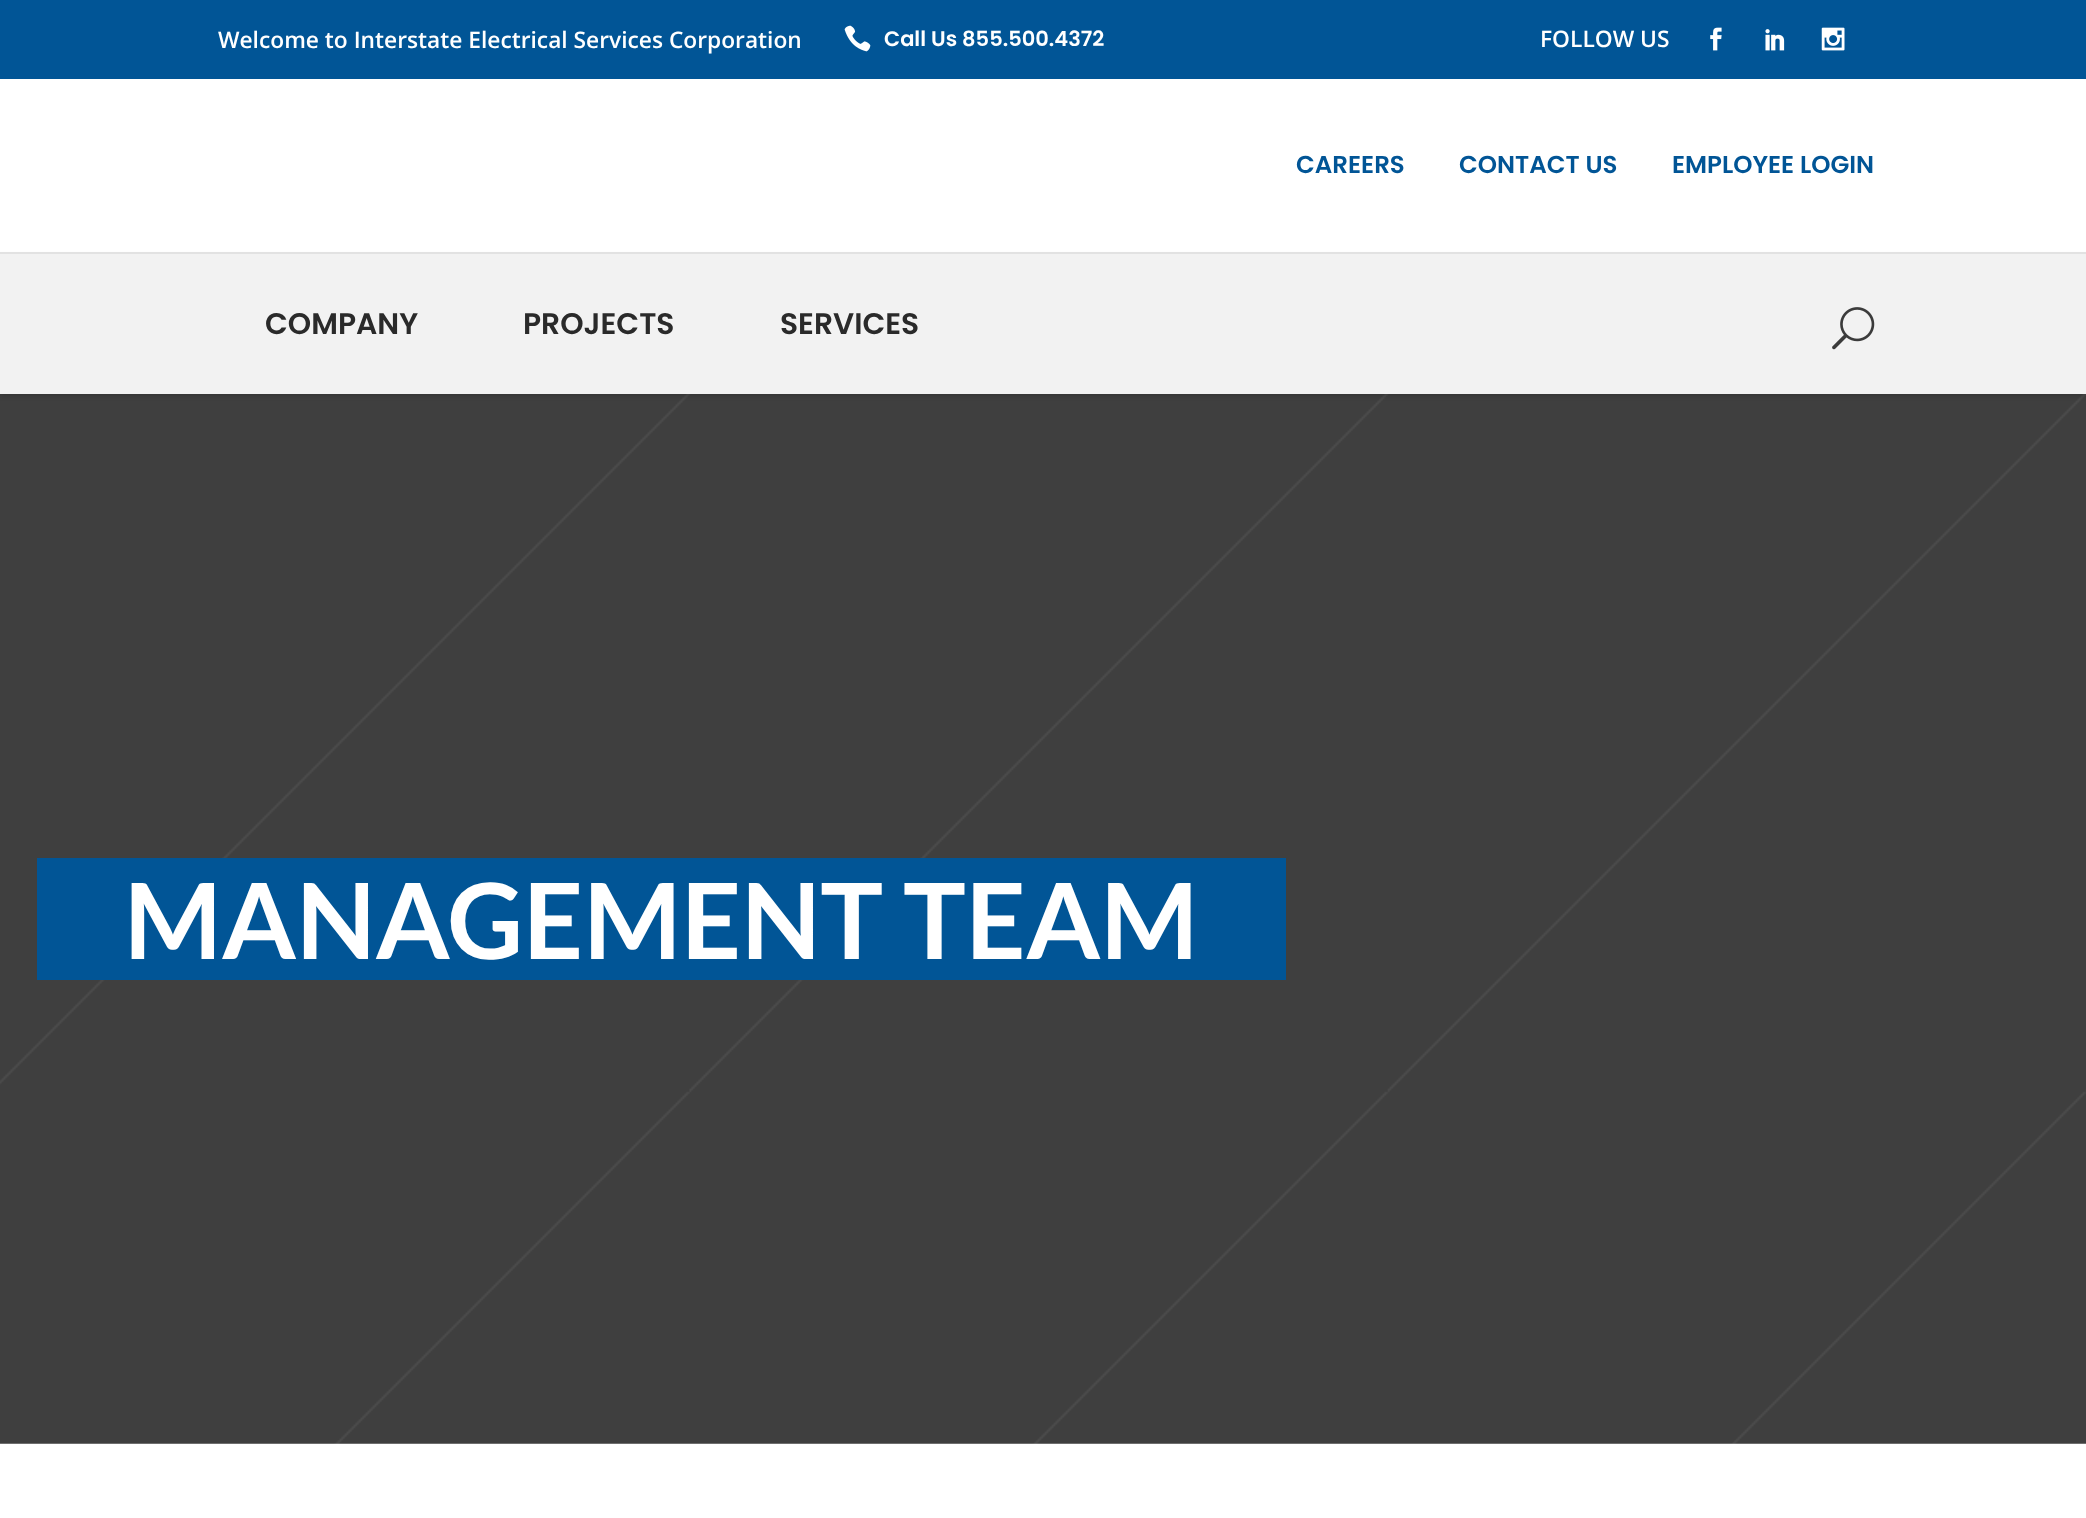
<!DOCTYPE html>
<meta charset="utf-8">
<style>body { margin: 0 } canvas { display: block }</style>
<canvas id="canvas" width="2086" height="1518"></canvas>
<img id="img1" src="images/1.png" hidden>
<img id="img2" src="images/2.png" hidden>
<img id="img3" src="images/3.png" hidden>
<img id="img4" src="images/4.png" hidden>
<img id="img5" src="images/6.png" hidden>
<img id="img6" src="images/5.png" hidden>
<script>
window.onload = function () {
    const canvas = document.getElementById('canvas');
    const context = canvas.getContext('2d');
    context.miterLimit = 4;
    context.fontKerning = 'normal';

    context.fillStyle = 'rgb(255, 255, 255)';
    context.fillRect(0, 0, 2086, 1518);
    context.fillStyle = 'rgb(1, 85, 150)';
    context.fillRect(0, 0, 2086, 79);
    context.drawImage(document.getElementById('img1'), 844, 25, 27, 27);
    context.drawImage(document.getElementById('img2'), 1710, 27, 12, 24);
    context.drawImage(document.getElementById('img3'), 1765, 29, 20, 22);
    context.drawImage(document.getElementById('img4'), 1821, 27, 24, 24);
    context.drawImage(document.getElementById('img5'), 0, 394, 2086, 1050);
    context.fillStyle = 'rgba(0, 0, 0, 0.15)';
    context.filter = 'blur(2.5px)';
    context.beginPath();
    context.rect(0, 256, 2086, 140);
    context.fill();
    context.filter = 'none';
    context.fillStyle = 'rgb(226, 226, 226)';
    context.fillRect(0, 252, 2086, 2);
    context.fillStyle = 'rgb(242, 242, 242)';
    context.fillRect(0, 254, 2086, 140);
    context.drawImage(document.getElementById('img6'), 1832, 307, 43, 43);
    context.fillStyle = 'rgb(1, 85, 150)';
    context.fillRect(37, 858, 1249, 122);
    context.font = '600 22.75px Open Sans';
    context.fillStyle = 'rgb(255, 255, 255)';
    context.fillText('Welcome to Interstate Electrical Services Corporation', 218, 48);
    context.font = '600 21px Poppins';
    context.fillText('Call Us 855.500.4372', 884, 46);
    context.font = '600 22.75px Open Sans';
    context.fillText('FOLLOW US', 1540, 47);
    context.font = '600 24.5px Poppins';
    context.fillStyle = 'rgb(1, 85, 150)';
    context.fillText('CAREERS', 1296, 173);
    context.fillText('CONTACT US', 1459, 173);
    context.fillText('EMPLOYEE LOGIN', 1672, 173);
    context.font = '600 29.75px Poppins';
    context.fillStyle = 'rgb(42, 42, 42)';
    context.fillText('COMPANY', 265, 334);
    context.fillText('PROJECTS', 523, 334);
    context.fillText('SERVICES', 780, 334);
    context.font = 'bold 105px Lato';
    context.fillStyle = 'rgb(255, 255, 255)';
    context.fillText('MANAGEMENT TEAM', 124, 959);
};
</script>
